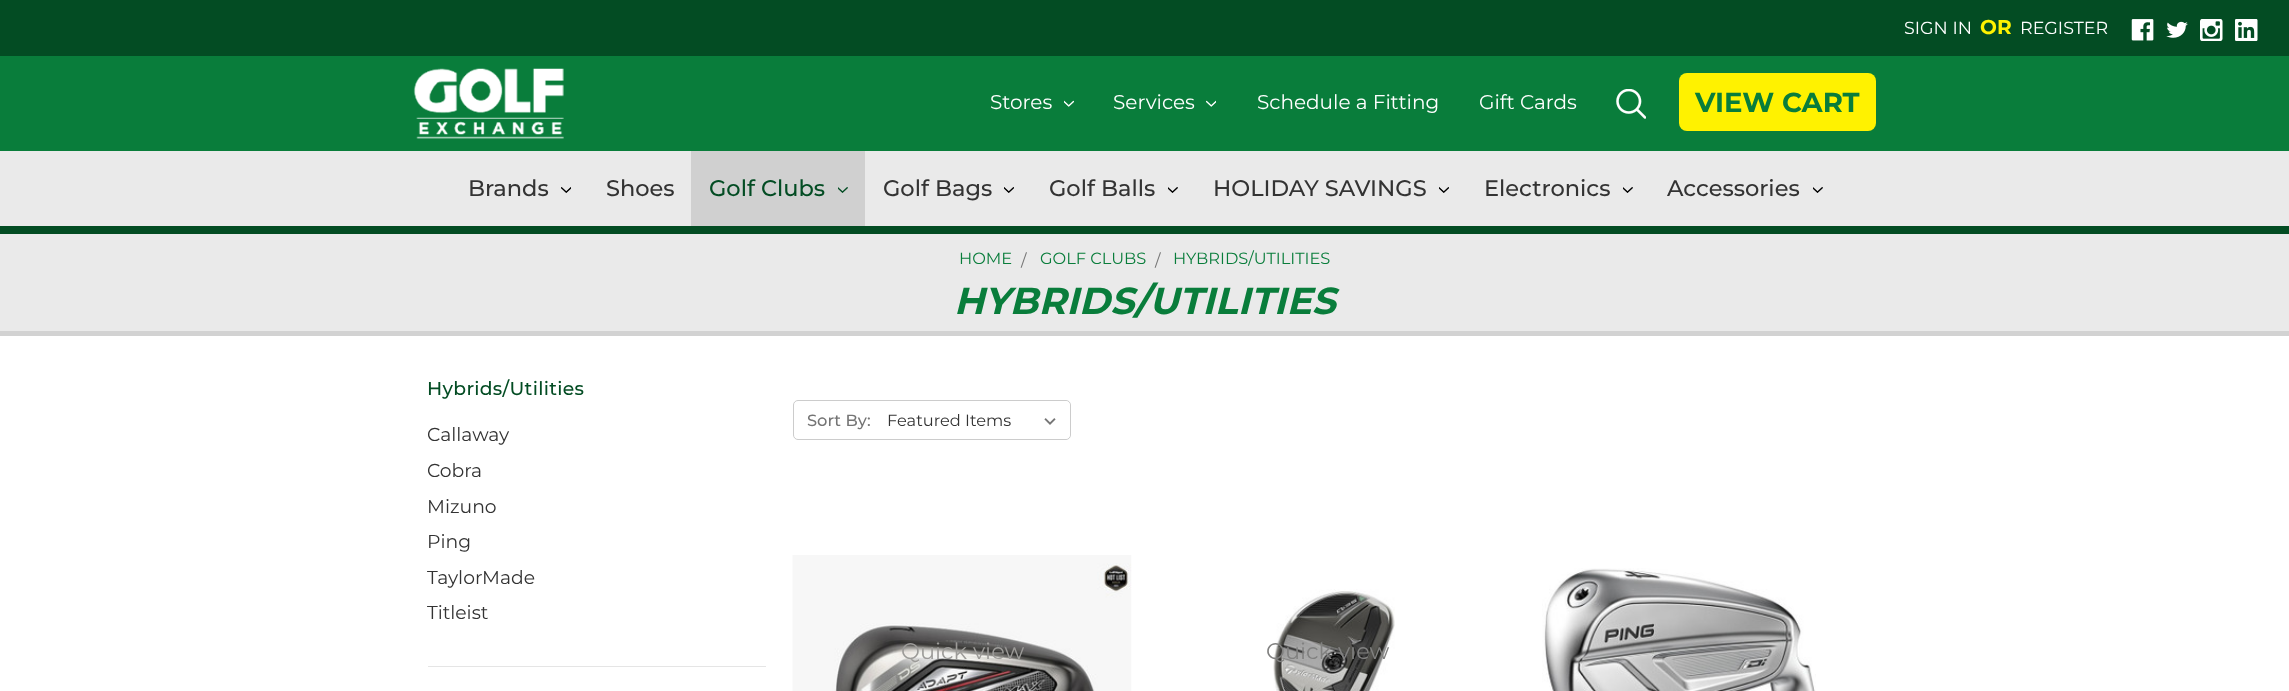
<!DOCTYPE html>
<meta charset="utf-8">
<style>body { margin: 0 } canvas { display: block }</style>
<canvas id="canvas" width="2289" height="691"></canvas>
<img id="img1" src="images/1.png" hidden>
<img id="img2" src="images/2.png" hidden>
<img id="img3" src="images/3.png" hidden>
<img id="img4" src="images/4.png" hidden>
<img id="img5" src="images/5.png" hidden>
<img id="img6" src="images/6.png" hidden>
<img id="img7" src="images/7.png" hidden>
<img id="img8" src="images/8.png" hidden>
<img id="img9" src="images/9.png" hidden>
<img id="img10" src="images/10.png" hidden>
<img id="img11" src="images/11.png" hidden>
<img id="img12" src="images/12.png" hidden>
<img id="img13" src="images/13.png" hidden>
<img id="img14" src="images/14.png" hidden>
<img id="img15" src="images/15.png" hidden>
<img id="img16" src="images/16.png" hidden>
<script>
window.onload = function () {
    const canvas = document.getElementById('canvas');
    const context = canvas.getContext('2d');
    context.miterLimit = 4;
    context.fontKerning = 'normal';

    context.fillStyle = 'rgb(255, 255, 255)';
    context.fillRect(0, 0, 2289, 691);
    context.fillStyle = 'rgb(3, 76, 35)';
    context.fillRect(0, 0, 2289, 56);
    context.drawImage(document.getElementById('img1'), 2131, 19, 23, 22);
    context.drawImage(document.getElementById('img2'), 2166, 21, 22, 17);
    context.drawImage(document.getElementById('img3'), 2200, 19, 23, 22);
    context.drawImage(document.getElementById('img4'), 2235, 19, 23, 22);
    context.fillStyle = 'rgb(9, 125, 59)';
    context.fillRect(0, 56, 2289, 95);
    context.drawImage(document.getElementById('img5'), 413, 68, 151, 71);
    context.drawImage(document.getElementById('img6'), 1064, 100, 10, 7);
    context.drawImage(document.getElementById('img7'), 1206, 100, 10, 7);
    context.drawImage(document.getElementById('img8'), 1616, 89, 30, 30);
    context.fillStyle = 'rgb(255, 242, 0)';
    context.beginPath();
    context.roundRect(1679, 73, 197, 58, 8);
    context.fill();
    context.fillStyle = 'rgb(234, 234, 234)';
    context.fillRect(0, 151, 2289, 75);
    context.fillStyle = 'rgb(3, 76, 35)';
    context.fillRect(0, 226, 2289, 8);
    context.drawImage(document.getElementById('img9'), 561, 187, 10, 6);
    context.fillStyle = 'rgb(208, 208, 208)';
    context.fillRect(691, 151, 174, 75);
    context.drawImage(document.getElementById('img10'), 838, 187, 10, 6);
    context.drawImage(document.getElementById('img11'), 1004, 187, 10, 6);
    context.drawImage(document.getElementById('img12'), 1168, 187, 10, 6);
    context.drawImage(document.getElementById('img11'), 1439, 187, 10, 6);
    context.drawImage(document.getElementById('img12'), 1623, 187, 10, 6);
    context.drawImage(document.getElementById('img12'), 1813, 187, 10, 6);
    context.fillStyle = 'rgb(234, 234, 234)';
    context.fillRect(0, 234, 2289, 97);
    context.fillStyle = 'rgb(210, 210, 210)';
    context.fillRect(0, 331, 2289, 5);
    context.fillStyle = 'rgb(229, 229, 229)';
    context.fillRect(428, 666, 338, 1);
    context.beginPath();
    context.roundRect(793.5, 400.5, 277, 39, 4.5);
    context.strokeStyle = 'rgb(204, 204, 204)';
    context.stroke();
    context.save();
    context.beginPath();
    context.roundRect(794, 401, 276, 38, 4);
    context.clip();
    context.fillStyle = 'rgb(255, 255, 255)';
    context.beginPath();
    context.roundRect(884, 401, 186, 38, 5);
    context.fill();
    context.restore();
    context.drawImage(document.getElementById('img13'), 1044, 418, 12, 7);
    context.drawImage(document.getElementById('img14'), 792, 555, 340, 136);
    context.drawImage(document.getElementById('img15'), 1273, 589, 122, 102);
    context.drawImage(document.getElementById('img16'), 1542, 568, 274, 123);
    context.font = '17.5px Montserrat';
    context.fillStyle = 'rgb(255, 255, 255)';
    context.fillText('SIGN IN', 1904, 34);
    context.font = 'bold 20px Montserrat';
    context.fillStyle = 'rgb(255, 242, 0)';
    context.fillText('OR', 1980, 34);
    context.font = '17.5px Montserrat';
    context.fillStyle = 'rgb(255, 255, 255)';
    context.fillText('REGISTER', 2020, 34);
    context.font = '20px Montserrat';
    context.fillText('Stores', 990, 109);
    context.fillText('Services', 1113, 109);
    context.fillText('Schedule a Fitting', 1257, 109);
    context.fillText('Gift Cards', 1479, 109);
    context.font = 'bold 27.5px Montserrat';
    context.fillStyle = 'rgb(9, 125, 59)';
    context.fillText('VIEW CART', 1695, 112);
    context.font = '500 22.5px Montserrat';
    context.fillStyle = 'rgb(51, 51, 51)';
    context.fillText('Brands', 468, 196);
    context.fillText('Shoes', 606, 196);
    context.fillStyle = 'rgb(3, 76, 35)';
    context.fillText('Golf Clubs', 709, 196);
    context.fillStyle = 'rgb(51, 51, 51)';
    context.fillText('Golf Bags', 883, 196);
    context.fillText('Golf Balls', 1049, 196);
    context.fillText('HOLIDAY SAVINGS', 1213, 196);
    context.fillText('Electronics', 1484, 196);
    context.fillText('Accessories', 1667, 196);
    context.font = '16.25px Montserrat';
    context.fillStyle = 'rgb(9, 125, 59)';
    context.fillText('HOME', 959, 264);
    context.fillStyle = 'rgb(117, 117, 117)';
    context.fillText('/', 1021, 266);
    context.fillStyle = 'rgb(9, 125, 59)';
    context.fillText('GOLF CLUBS', 1040, 264);
    context.fillStyle = 'rgb(117, 117, 117)';
    context.fillText('/', 1155, 266);
    context.fillStyle = 'rgb(9, 125, 59)';
    context.fillText('HYBRIDS/UTILITIES', 1173, 264);
    context.letterSpacing = '0.3px';
    context.font = 'italic bold 37.5px Montserrat';
    context.fillText('HYBRIDS/UTILITIES', 954, 314);
    context.font = '500 18.75px Montserrat';
    context.fillStyle = 'rgb(3, 76, 35)';
    context.fillText('Hybrids/Utilities', 427, 395);
    context.letterSpacing = '0px';
    context.font = '18.75px Montserrat';
    context.fillStyle = 'rgb(51, 51, 51)';
    context.fillText('Callaway', 427, 441);
    context.fillText('Cobra', 427, 477);
    context.fillText('Mizuno', 427, 513);
    context.fillText('Ping', 427, 548);
    context.fillText('TaylorMade', 427, 584);
    context.fillText('Titleist', 427, 619);
    context.font = '500 16.25px Montserrat';
    context.fillStyle = 'rgb(117, 117, 117)';
    context.fillText('Sort By:', 807, 426);
    context.font = '16.25px Montserrat';
    context.fillStyle = 'rgb(51, 51, 51)';
    context.fillText('Featured Items', 887, 426);
    context.font = '22.5px Montserrat';
    context.fillStyle = 'rgb(156, 155, 152)';
    context.fillText('Quick view', 901, 659);
    context.fillStyle = 'rgb(129, 129, 128)';
    context.fillText('Quick view', 1266, 659);
};
</script>
